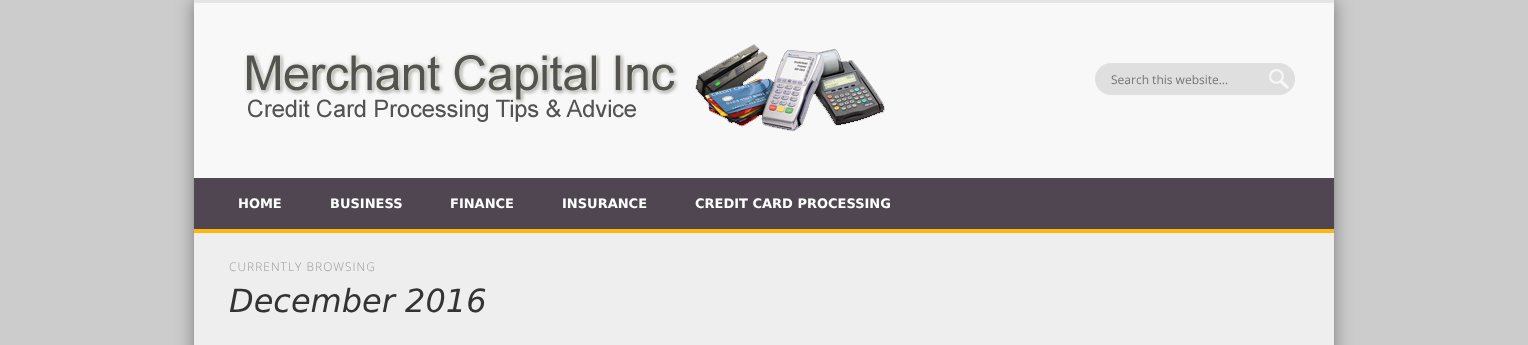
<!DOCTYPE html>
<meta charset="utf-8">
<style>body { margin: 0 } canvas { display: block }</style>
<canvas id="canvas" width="1528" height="345"></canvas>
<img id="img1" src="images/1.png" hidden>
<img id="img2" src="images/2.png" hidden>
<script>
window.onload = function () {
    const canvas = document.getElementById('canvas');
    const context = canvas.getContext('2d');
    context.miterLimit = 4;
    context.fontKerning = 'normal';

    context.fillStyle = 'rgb(204, 204, 204)';
    context.fillRect(0, 0, 1528, 345);
    context.fillStyle = 'rgba(0, 0, 0, 0.4)';
    context.filter = 'blur(9px)';
    context.beginPath();
    context.rect(194, 0, 1140, 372);
    context.fill();
    context.filter = 'none';
    context.fillStyle = 'rgb(248, 248, 248)';
    context.fillRect(194, 3, 1140, 175);
    context.fillStyle = 'rgb(229, 229, 229)';
    context.fillRect(194, 0, 1140, 3);
    context.drawImage(document.getElementById('img1'), 242, 42, 646, 95);
    context.fillStyle = 'rgb(223, 223, 223)';
    context.beginPath();
    context.roundRect(1095, 63, 200, 32, 16);
    context.fill();
    context.drawImage(document.getElementById('img2'), 1269, 69, 20, 20);
    context.fillStyle = 'rgb(79, 70, 81)';
    context.fillRect(194, 178, 1140, 51);
    context.fillStyle = 'rgb(255, 183, 11)';
    context.fillRect(194, 229, 1140, 4);
    context.fillStyle = 'rgb(238, 238, 238)';
    context.fillRect(194, 233, 1140, 112);
    context.font = '12px Open Sans';
    context.fillStyle = 'rgb(117, 117, 117)';
    context.fillText('Search this website…', 1111, 84);
    context.font = 'bold 13px DejaVu Sans';
    context.fillStyle = 'rgb(255, 255, 255)';
    context.fillText('HOME', 238, 208);
    context.fillText('BUSINESS', 330, 208);
    context.fillText('FINANCE', 450, 208);
    context.fillText('INSURANCE', 562, 208);
    context.fillText('CREDIT CARD PROCESSING', 695, 208);
    context.letterSpacing = '1px';
    context.font = '300 12px Open Sans';
    context.fillStyle = 'rgb(153, 153, 153)';
    context.fillText('CURRENTLY BROWSING', 229, 271);
    context.letterSpacing = '0px';
    context.font = 'italic 32px DejaVu Sans';
    context.fillStyle = 'rgb(51, 51, 51)';
    context.fillText('December 2016', 229, 312);
};
</script>
